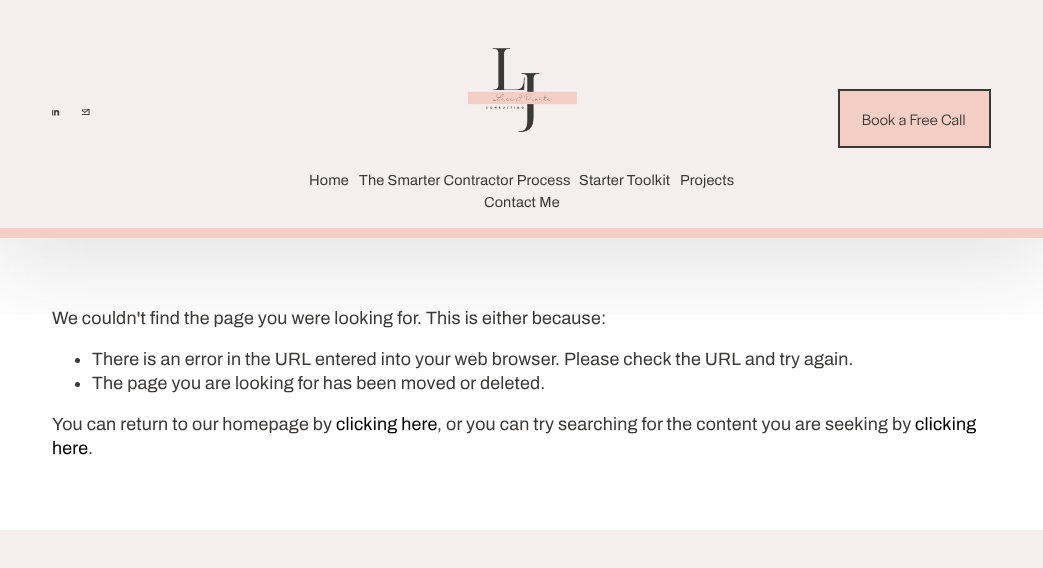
<!DOCTYPE html>
<meta charset="utf-8">
<style>body { margin: 0 } canvas { display: block }</style>
<canvas id="canvas" width="1043" height="568"></canvas>
<img id="img1" src="images/1.png" hidden>
<img id="img2" src="images/2.png" hidden>
<img id="img3" src="images/3.png" hidden>
<script>
window.onload = function () {
    const canvas = document.getElementById('canvas');
    const context = canvas.getContext('2d');
    context.miterLimit = 4;
    context.fontKerning = 'normal';

    context.fillStyle = 'rgb(255, 255, 255)';
    context.fillRect(0, 0, 1043, 568);
    context.fillStyle = 'rgb(245, 238, 238)';
    context.fillRect(0, 0, 1043, 228);
    context.fillStyle = 'rgb(59, 57, 55)';
    context.beginPath();
    context.arc(77.5, 360.5, 2.5, 0, 2 * Math.PI);
    context.fill();
    context.beginPath();
    context.arc(77.5, 384.5, 2.5, 0, 2 * Math.PI);
    context.fill();
    context.save();
    context.beginPath();
    context.rect(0, 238, 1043, 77);
    context.clip();
    context.fillStyle = 'rgba(59, 57, 55, 0.15)';
    context.filter = 'blur(48px)';
    context.beginPath();
    context.rect(-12, 0, 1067, 262);
    context.fill();
    context.filter = 'none';
    context.restore();
    context.drawImage(document.getElementById('img1'), 52, 109, 8, 7);
    context.drawImage(document.getElementById('img2'), 82, 109, 8, 6);
    context.fillStyle = 'rgb(242, 206, 197)';
    context.beginPath();
    context.rect(839, 90, 151, 57);
    context.fill();
    context.strokeStyle = 'rgb(59, 57, 55)';
    context.lineWidth = 2;
    context.stroke();
    context.drawImage(document.getElementById('img3'), 467, 48, 110, 84);
    context.fillRect(0, 228, 1043, 10);
    context.fillStyle = 'rgb(245, 238, 238)';
    context.fillRect(0, 530, 1043, 38);
    context.letterSpacing = '0.25px';
    context.font = '15.75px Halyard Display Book';
    context.fillStyle = 'rgb(59, 57, 55)';
    context.fillText('Book a Free Call', 862, 125);
    context.letterSpacing = '0.15px';
    context.font = '14.5px Archivo';
    context.fillText('Home', 309, 185);
    context.fillText('The Smarter Contractor Process', 359, 185);
    context.fillText('Starter Toolkit', 579, 185);
    context.fillText('Projects', 680, 185);
    context.fillText('Contact Me', 484, 207);
    context.letterSpacing = '0.18px';
    context.font = '17.9px Archivo';
    context.fillText('We couldn\'t find the page you were looking for. This is either because:', 52, 324);
    context.fillText('There is an error in the URL entered into your web browser. Please check the URL and try again.', 92, 365);
    context.fillText('The page you are looking for has been moved or deleted.', 92, 389);
    context.fillText('You can return to our homepage by', 52, 430);
    context.fillStyle = 'rgb(0, 0, 0)';
    context.fillText('clicking here', 336, 430);
    context.fillStyle = 'rgb(59, 57, 55)';
    context.fillText(', or you can try searching for the content you are seeking by', 437, 430);
    context.fillStyle = 'rgb(0, 0, 0)';
    context.fillText('clicking', 915, 430);
    context.fillText('here', 52, 454);
    context.fillStyle = 'rgb(59, 57, 55)';
    context.fillText('.', 88, 454);
};
</script>
